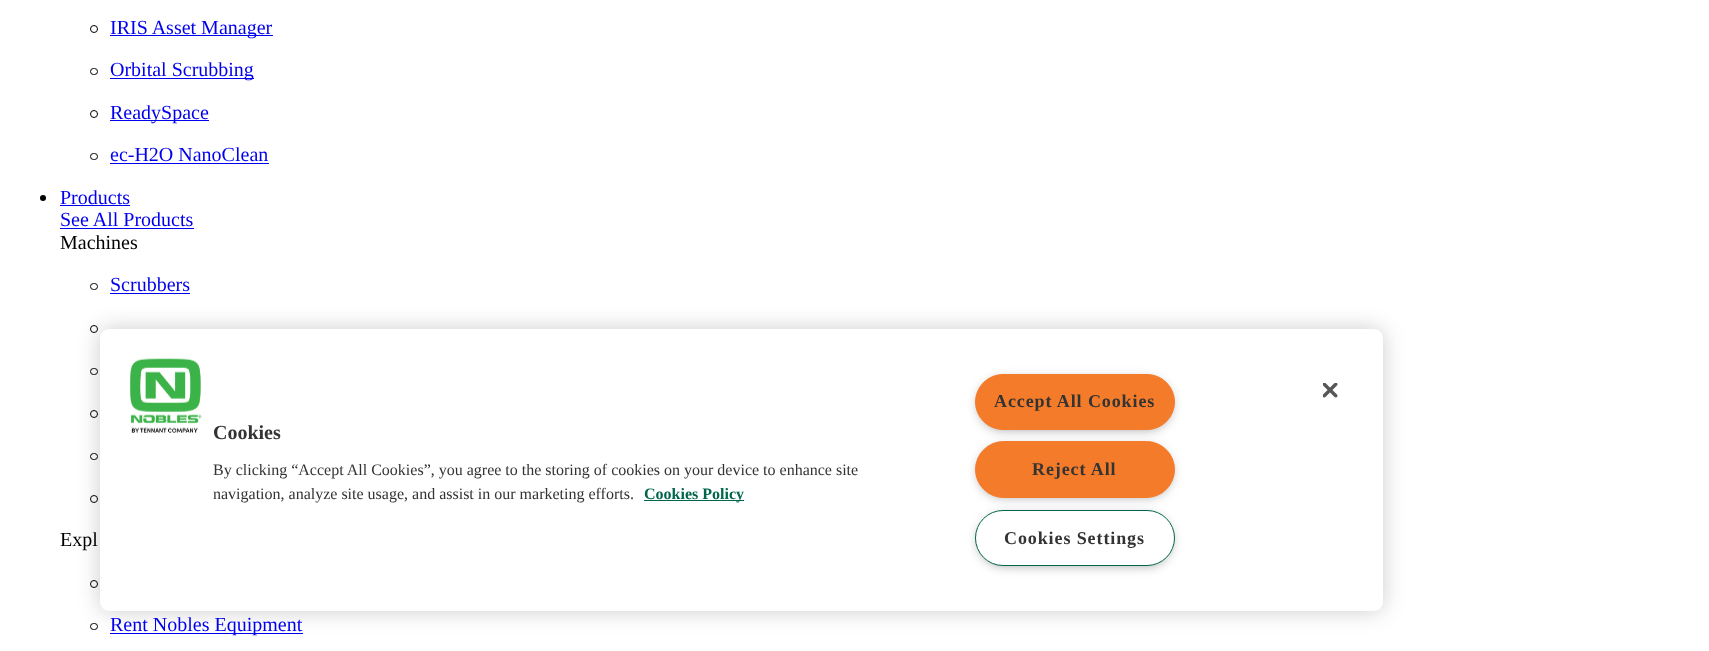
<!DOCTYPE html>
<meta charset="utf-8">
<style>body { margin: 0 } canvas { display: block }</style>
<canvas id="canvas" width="1709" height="651"></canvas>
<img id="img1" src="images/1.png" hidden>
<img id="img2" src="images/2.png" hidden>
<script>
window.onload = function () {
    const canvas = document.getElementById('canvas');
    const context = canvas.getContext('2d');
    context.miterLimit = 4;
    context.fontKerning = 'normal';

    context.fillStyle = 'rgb(255, 255, 255)';
    context.fillRect(0, 0, 1709, 651);
    context.beginPath();
    context.arc(94, 29, 3.5, 0, 2 * Math.PI);
    context.strokeStyle = 'rgb(0, 0, 0)';
    context.stroke();
    context.fillStyle = 'rgb(0, 0, 238)';
    context.fillRect(110, 35, 163, 1);
    context.beginPath();
    context.roundRect(90.5, 68.5, 7, 6, 3);
    context.stroke();
    context.fillRect(110, 78, 144, 1);
    context.beginPath();
    context.arc(94, 114, 3.5, 0, 2 * Math.PI);
    context.stroke();
    context.fillRect(110, 120, 99, 1);
    context.beginPath();
    context.roundRect(90.5, 153.5, 7, 6, 3);
    context.stroke();
    context.fillRect(110, 163, 159, 1);
    context.fillStyle = 'rgb(0, 0, 0)';
    context.beginPath();
    context.arc(43, 198, 3, 0, 2 * Math.PI);
    context.fill();
    context.fillStyle = 'rgb(0, 0, 238)';
    context.fillRect(60, 205, 70, 1);
    context.fillRect(60, 228, 134, 1);
    context.beginPath();
    context.roundRect(90.5, 283.5, 7, 6, 3);
    context.stroke();
    context.fillRect(110, 293, 80, 1);
    context.beginPath();
    context.arc(94, 329, 3.5, 0, 2 * Math.PI);
    context.stroke();
    context.beginPath();
    context.roundRect(90.5, 368.5, 7, 6, 3);
    context.stroke();
    context.beginPath();
    context.arc(94, 414, 3.5, 0, 2 * Math.PI);
    context.stroke();
    context.beginPath();
    context.roundRect(90.5, 453.5, 7, 6, 3);
    context.stroke();
    context.beginPath();
    context.arc(94, 499, 3.5, 0, 2 * Math.PI);
    context.stroke();
    context.beginPath();
    context.arc(94, 584, 3.5, 0, 2 * Math.PI);
    context.stroke();
    context.beginPath();
    context.roundRect(90.5, 623.5, 7, 6, 3);
    context.stroke();
    context.fillRect(110, 633, 193, 1);
    context.fillStyle = 'rgba(0, 0, 0, 0.2)';
    context.filter = 'blur(11px)';
    context.beginPath();
    context.roundRect(100, 329, 1283, 282, 9);
    context.fill();
    context.filter = 'none';
    context.fillStyle = 'rgb(255, 255, 255)';
    context.beginPath();
    context.roundRect(100, 329, 1283, 282, 9);
    context.fill();
    context.drawImage(document.getElementById('img1'), 130, 358, 72, 75);
    context.drawImage(document.getElementById('img2'), 1323, 383, 15, 15);
    context.fillStyle = 'rgb(0, 102, 75)';
    context.fillRect(644, 500, 100, 1);
    context.fillStyle = 'rgb(153, 153, 153)';
    context.filter = 'blur(6px)';
    context.beginPath();
    context.roundRect(979, 380, 192, 49, 24.5);
    context.fill();
    context.filter = 'none';
    context.fillStyle = 'rgb(244, 123, 41)';
    context.beginPath();
    context.roundRect(975.5, 374.5, 199, 55, 27.5);
    context.fill();
    context.strokeStyle = 'rgb(244, 123, 41)';
    context.stroke();
    context.fillStyle = 'rgb(153, 153, 153)';
    context.filter = 'blur(6px)';
    context.beginPath();
    context.roundRect(979, 448, 192, 48, 24);
    context.fill();
    context.filter = 'none';
    context.fillStyle = 'rgb(244, 123, 41)';
    context.beginPath();
    context.roundRect(975.5, 441.5, 199, 56, 28);
    context.fill();
    context.stroke();
    context.fillStyle = 'rgb(153, 153, 153)';
    context.filter = 'blur(6px)';
    context.beginPath();
    context.roundRect(979, 516, 192, 49, 24.5);
    context.fill();
    context.filter = 'none';
    context.fillStyle = 'rgb(255, 255, 255)';
    context.beginPath();
    context.roundRect(975.5, 510.5, 199, 55, 27.5);
    context.fill();
    context.strokeStyle = 'rgb(0, 102, 75)';
    context.stroke();
    context.font = '20px Liberation Serif';
    context.fillStyle = 'rgb(0, 0, 238)';
    context.fillText('IRIS Asset Manager', 110, 34);
    context.fillText('Orbital Scrubbing', 110, 76);
    context.fillText('ReadySpace', 110, 119);
    context.fillText('ec-H2O NanoClean', 110, 161);
    context.fillText('Products', 60, 204);
    context.fillText('See All Products', 60, 226);
    context.fillStyle = 'rgb(0, 0, 0)';
    context.fillText('Machines', 60, 249);
    context.fillStyle = 'rgb(0, 0, 238)';
    context.fillText('Scrubbers', 110, 291);
    context.fillStyle = 'rgb(0, 0, 0)';
    context.fillText('Expl', 60, 546);
    context.fillStyle = 'rgb(0, 0, 238)';
    context.fillText('Rent Nobles Equipment', 110, 631);
    context.font = 'bold 20px Liberation Serif';
    context.fillStyle = 'rgb(51, 51, 51)';
    context.fillText('Cookies', 213, 439);
    context.font = '16px Liberation Serif';
    context.fillText('By clicking “Accept All Cookies”, you agree to the storing of cookies on your device to enhance site', 213, 475);
    context.fillText('navigation, analyze site usage, and assist in our marketing efforts.', 213, 499);
    context.font = 'bold 16px Liberation Serif';
    context.fillStyle = 'rgb(0, 102, 75)';
    context.fillText('Cookies Policy', 644, 499);
    context.letterSpacing = '0.9px';
    context.font = 'bold 18px Liberation Serif';
    context.fillStyle = 'rgb(51, 51, 51)';
    context.fillText('Accept All Cookies', 994, 407);
    context.fillText('Reject All', 1032, 475);
    context.fillText('Cookies Settings', 1004, 544);
};
</script>
